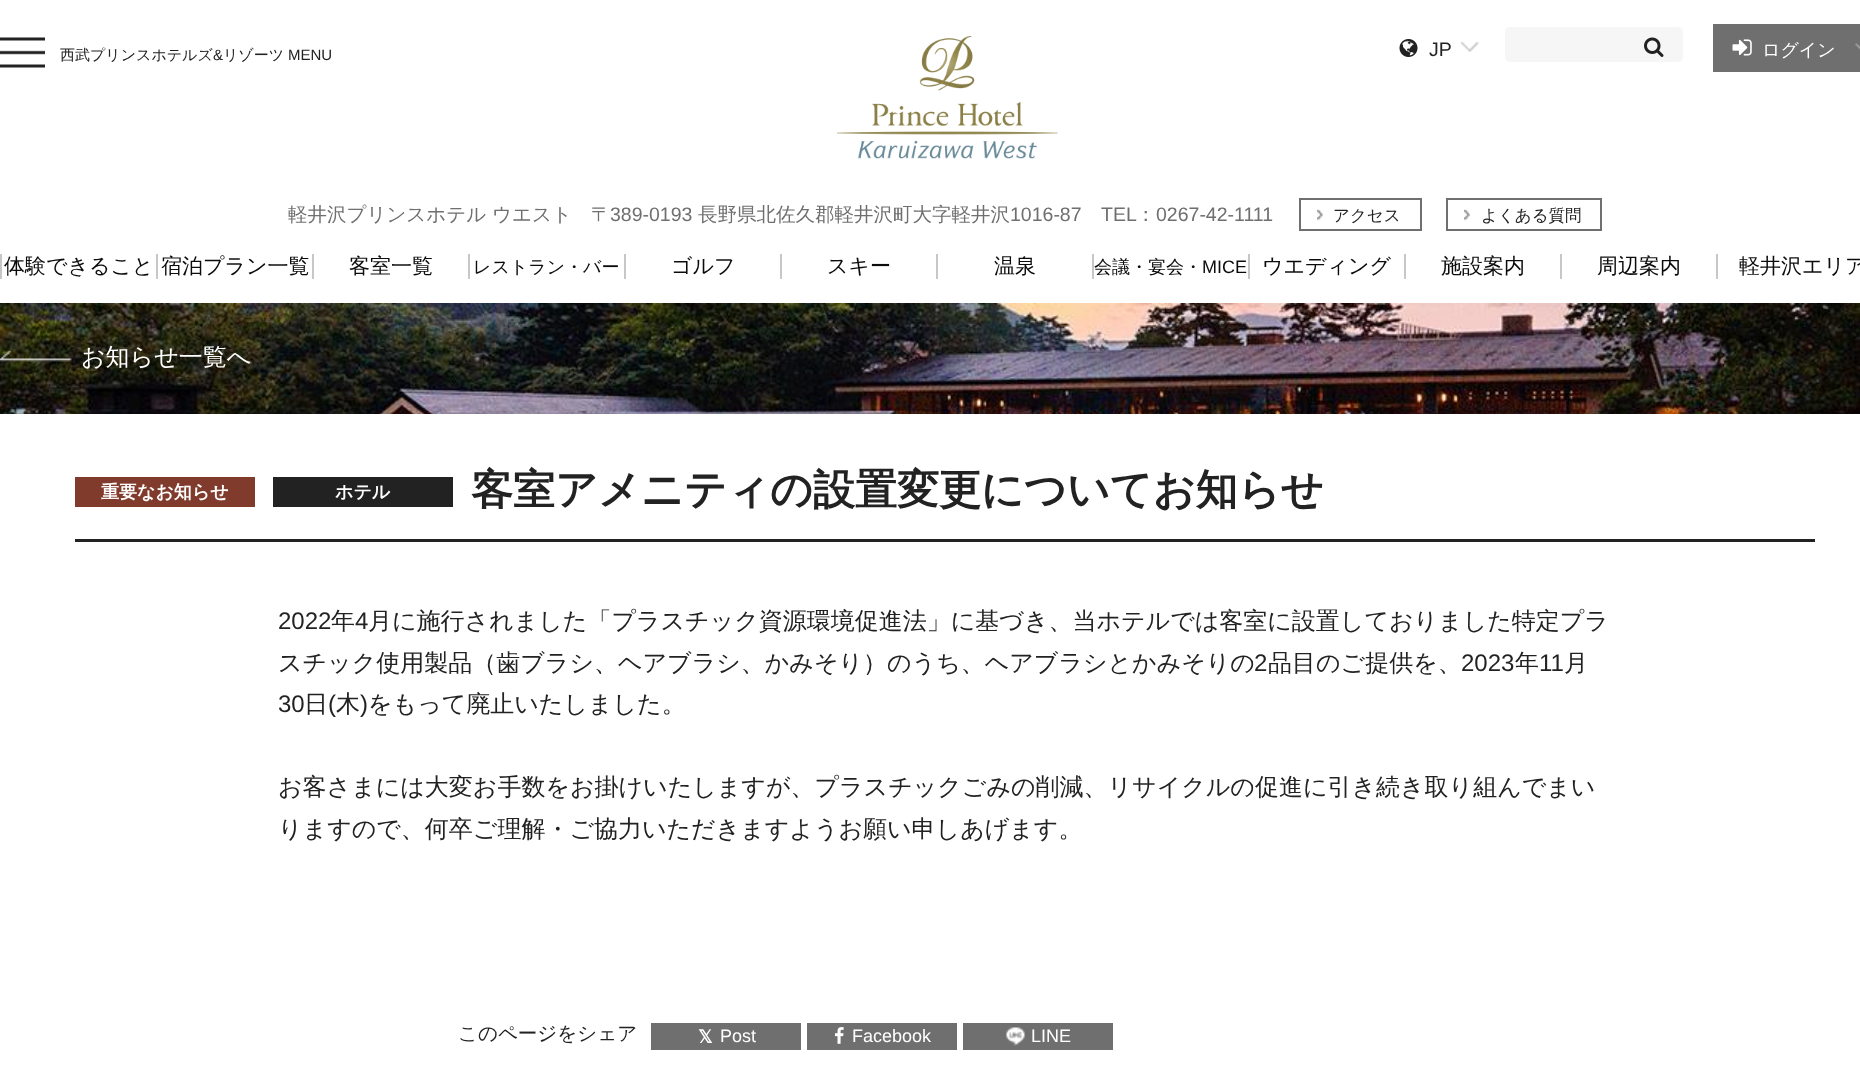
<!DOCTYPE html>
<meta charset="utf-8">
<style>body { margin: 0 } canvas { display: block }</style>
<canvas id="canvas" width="1860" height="1075"></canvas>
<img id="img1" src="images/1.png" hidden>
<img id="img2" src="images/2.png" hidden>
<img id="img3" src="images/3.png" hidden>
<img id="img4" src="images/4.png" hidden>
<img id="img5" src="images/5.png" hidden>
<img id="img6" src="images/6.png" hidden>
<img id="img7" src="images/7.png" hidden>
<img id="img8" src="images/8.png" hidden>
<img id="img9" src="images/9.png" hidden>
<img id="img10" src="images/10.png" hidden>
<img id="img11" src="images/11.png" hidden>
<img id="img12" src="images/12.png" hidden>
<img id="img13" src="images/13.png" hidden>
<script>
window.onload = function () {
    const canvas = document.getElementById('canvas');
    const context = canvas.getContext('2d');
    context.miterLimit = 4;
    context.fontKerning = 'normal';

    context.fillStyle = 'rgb(255, 255, 255)';
    context.fillRect(0, 0, 1860, 1075);
    context.drawImage(document.getElementById('img1'), 0, 37, 45, 31);
    context.drawImage(document.getElementById('img2'), 837, 36, 221, 123);
    context.drawImage(document.getElementById('img3'), 1461, 42, 18, 11);
    context.drawImage(document.getElementById('img4'), 1399, 39, 19, 18);
    context.fillStyle = 'rgb(246, 246, 246)';
    context.beginPath();
    context.roundRect(1505, 27, 178, 35, 5);
    context.fill();
    context.drawImage(document.getElementById('img5'), 1644, 37, 20, 20);
    context.fillStyle = 'rgb(111, 111, 111)';
    context.fillRect(1713, 24, 147, 48);
    context.drawImage(document.getElementById('img6'), 1855, 43, 5, 7);
    context.drawImage(document.getElementById('img7'), 1732, 39, 20, 17);
    context.strokeStyle = 'rgb(111, 111, 111)';
    context.lineWidth = 2;
    context.strokeRect(1300, 199, 121, 31);
    context.drawImage(document.getElementById('img8'), 1317, 209, 6, 12);
    context.strokeRect(1447, 199, 154, 31);
    context.drawImage(document.getElementById('img9'), 1464, 209, 6, 12);
    context.fillStyle = 'rgb(199, 199, 199)';
    context.fillRect(0, 254, 2, 25);
    context.fillRect(156, 254, 2, 25);
    context.fillRect(312, 254, 2, 25);
    context.fillRect(468, 254, 2, 25);
    context.fillRect(624, 254, 2, 25);
    context.fillRect(780, 254, 2, 25);
    context.fillRect(936, 254, 2, 25);
    context.fillRect(1092, 254, 2, 25);
    context.fillRect(1248, 254, 2, 25);
    context.fillRect(1404, 254, 2, 25);
    context.fillRect(1560, 254, 2, 25);
    context.fillRect(1716, 254, 2, 25);
    context.drawImage(document.getElementById('img10'), 0, 303, 1860, 111);
    context.drawImage(document.getElementById('img11'), 0, 351, 72, 11);
    context.fillStyle = 'rgb(34, 34, 34)';
    context.fillRect(75, 539, 1740, 3);
    context.fillStyle = 'rgb(128, 59, 45)';
    context.fillRect(75, 477, 180, 30);
    context.fillStyle = 'rgb(34, 34, 34)';
    context.fillRect(273, 477, 180, 30);
    context.fillStyle = 'rgb(111, 111, 111)';
    context.fillRect(651, 1023, 150, 27);
    context.fillRect(807, 1023, 150, 27);
    context.drawImage(document.getElementById('img12'), 834, 1027, 10, 17);
    context.fillRect(963, 1023, 150, 27);
    context.drawImage(document.getElementById('img13'), 1006, 1027, 19, 19);
    context.font = '500 15px WenQuanYi Zen Hei';
    context.fillStyle = 'rgb(34, 34, 34)';
    context.fillText('西武プリンスホテルズ', 60, 60);
    context.font = '15px Liberation Sans';
    context.fillText('&', 213, 60);
    context.font = '500 15px WenQuanYi Zen Hei';
    context.fillText('リゾーツ', 223, 60);
    context.font = '15px Liberation Sans';
    context.fillText('MENU', 288, 60);
    context.font = '19.5px Liberation Sans';
    context.fillText('JP', 1429, 56);
    context.font = '500 18px WenQuanYi Zen Hei';
    context.fillStyle = 'rgb(255, 255, 255)';
    context.fillText('ログイン', 1762, 56);
    context.font = '500 19.5px WenQuanYi Zen Hei';
    context.fillStyle = 'rgb(111, 111, 111)';
    context.fillText('軽井沢プリンスホテル ウエスト', 288, 221);
    context.fillText('〒', 591, 221);
    context.font = '19.5px Liberation Sans';
    context.fillText('389-0193', 610, 221);
    context.font = '500 19.5px WenQuanYi Zen Hei';
    context.fillText('長野県北佐久郡軽井沢町大字軽井沢', 698, 221);
    context.font = '19.5px Liberation Sans';
    context.fillText('1016-87 TEL', 1010, 221);
    context.font = '500 19.5px WenQuanYi Zen Hei';
    context.fillText('：', 1136, 221);
    context.font = '19.5px Liberation Sans';
    context.fillText('0267-42-1111', 1156, 221);
    context.font = '500 16.5px WenQuanYi Zen Hei';
    context.fillStyle = 'rgb(34, 34, 34)';
    context.fillText('アクセス', 1333, 221);
    context.fillText('よくある質問', 1481, 221);
    context.font = '500 21px WenQuanYi Zen Hei';
    context.fillStyle = 'rgb(11, 11, 11)';
    context.fillText('体験できること', 4, 273);
    context.fillText('宿泊プラン一覧', 161, 273);
    context.fillText('客室一覧', 349, 273);
    context.font = '500 18px WenQuanYi Zen Hei';
    context.fillText('レストラン・バー', 473, 273);
    context.font = '500 21px WenQuanYi Zen Hei';
    context.fillText('ゴルフ', 671, 273);
    context.fillText('スキー', 827, 273);
    context.fillText('温泉', 994, 273);
    context.font = '500 18px WenQuanYi Zen Hei';
    context.fillText('会議・宴会・', 1094, 273);
    context.font = '18px Liberation Sans';
    context.fillText('MICE', 1202, 273);
    context.font = '500 21px WenQuanYi Zen Hei';
    context.fillText('ウエディング', 1262, 273);
    context.fillText('施設案内', 1441, 273);
    context.fillText('周辺案内', 1597, 273);
    context.fillText('軽井沢エリア', 1739, 273);
    context.font = '500 24px WenQuanYi Zen Hei';
    context.fillStyle = 'rgb(255, 255, 255)';
    context.fillText('お知らせ一覧へ', 81, 365);
    context.font = 'bold 18px WenQuanYi Zen Hei';
    context.fillText('重要なお知らせ', 101, 498);
    context.fillText('ホテル', 335, 498);
    context.font = 'bold 42px WenQuanYi Zen Hei';
    context.fillStyle = 'rgb(34, 34, 34)';
    context.fillText('客室アメニティの設置変更についてお知らせ', 471, 504);
    context.font = '24px Liberation Sans';
    context.fillText('2022', 278, 629);
    context.font = '500 24px WenQuanYi Zen Hei';
    context.fillText('年', 331, 629);
    context.font = '24px Liberation Sans';
    context.fillText('4', 355, 629);
    context.font = '500 24px WenQuanYi Zen Hei';
    context.fillText('月に施行されました「プラスチック資源環境促進法」に基づき、当ホテルでは客室に設置しておりました特定プラ', 368, 629);
    context.fillText('スチック使用製品（歯ブラシ、ヘアブラシ、かみそり）のうち、ヘアブラシとかみそりの', 278, 671);
    context.font = '24px Liberation Sans';
    context.fillText('2', 1254, 671);
    context.font = '500 24px WenQuanYi Zen Hei';
    context.fillText('品目のご提供を、', 1268, 671);
    context.font = '24px Liberation Sans';
    context.fillText('2023', 1461, 671);
    context.font = '500 24px WenQuanYi Zen Hei';
    context.fillText('年', 1515, 671);
    context.font = '24px Liberation Sans';
    context.fillText('11', 1539, 671);
    context.font = '500 24px WenQuanYi Zen Hei';
    context.fillText('月', 1564, 671);
    context.font = '24px Liberation Sans';
    context.fillText('30', 278, 712);
    context.font = '500 24px WenQuanYi Zen Hei';
    context.fillText('日', 304, 712);
    context.font = '24px Liberation Sans';
    context.fillText('(', 328, 712);
    context.font = '500 24px WenQuanYi Zen Hei';
    context.fillText('木', 336, 712);
    context.font = '24px Liberation Sans';
    context.fillText(')', 360, 712);
    context.font = '500 24px WenQuanYi Zen Hei';
    context.fillText('をもって廃止いたしました。', 368, 712);
    context.fillText('お客さまには大変お手数をお掛けいたしますが、プラスチックごみの削減、リサイクルの促進に引き続き取り組んでまい', 278, 795);
    context.fillText('りますので、何卒ご理解・ご協力いただきますようお願い申しあげます。', 278, 837);
    context.font = '500 19.5px WenQuanYi Zen Hei';
    context.fillText('このページをシェア', 458, 1040);
    context.font = 'bold 18px DejaVu Sans';
    context.fillStyle = 'rgb(255, 255, 255)';
    context.fillText('𝕏', 698, 1043);
    context.font = '18px Liberation Sans';
    context.fillText('Post', 720, 1042);
    context.fillText('Facebook', 852, 1042);
    context.fillText('LINE', 1031, 1042);
};
</script>
